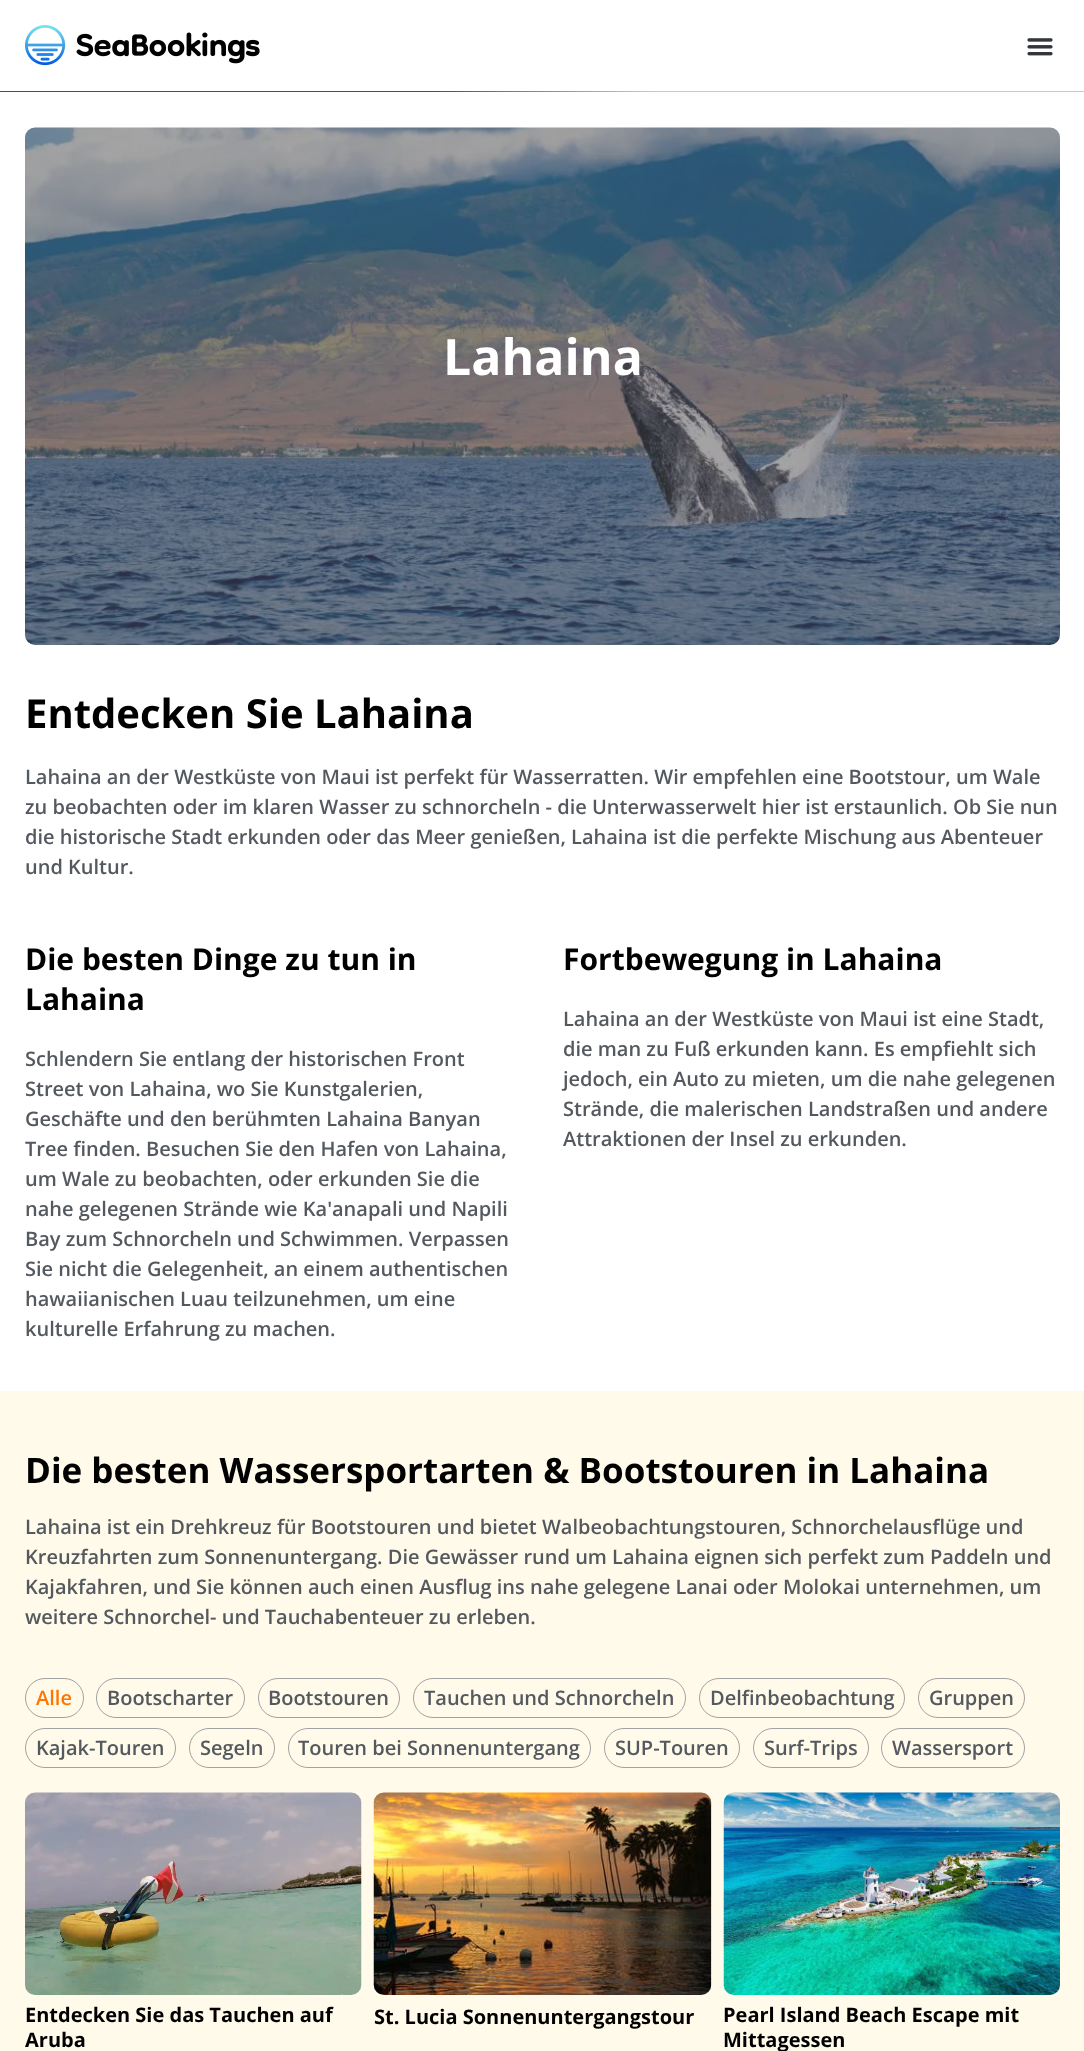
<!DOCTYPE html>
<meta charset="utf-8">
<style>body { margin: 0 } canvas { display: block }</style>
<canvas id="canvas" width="1084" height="2051"></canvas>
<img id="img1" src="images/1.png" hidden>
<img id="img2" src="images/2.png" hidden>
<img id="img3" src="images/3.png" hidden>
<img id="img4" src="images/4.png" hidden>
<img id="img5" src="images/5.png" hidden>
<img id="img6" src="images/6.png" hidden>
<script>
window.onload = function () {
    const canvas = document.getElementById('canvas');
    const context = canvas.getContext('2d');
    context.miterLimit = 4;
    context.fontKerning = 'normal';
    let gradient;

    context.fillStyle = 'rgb(255, 255, 255)';
    context.fillRect(0, 0, 1084, 2051);
    context.drawImage(document.getElementById('img1'), 25, 25, 235, 41);
    context.drawImage(document.getElementById('img2'), 1027, 38, 26, 18);
    gradient = context.createLinearGradient(224, 359, 861, -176);
    gradient.addColorStop(0.4, 'rgb(0, 90, 225)');
    gradient.addColorStop(0.6, 'rgb(121, 233, 238)');
    context.fillStyle = gradient;
    context.fillRect(0, 91, 1084, 1);
    context.drawImage(document.getElementById('img3'), 25, 127, 1035, 518);
    context.fillStyle = 'rgb(255, 250, 233)';
    context.fillRect(0, 1391, 1084, 660);
    context.beginPath();
    context.roundRect(25.5, 1678.5, 58, 39, 19.5);
    context.strokeStyle = 'rgb(161, 161, 161)';
    context.stroke();
    context.beginPath();
    context.roundRect(96.5, 1678.5, 148, 39, 19.5);
    context.stroke();
    context.beginPath();
    context.roundRect(258.5, 1678.5, 141, 39, 19.5);
    context.stroke();
    context.beginPath();
    context.roundRect(413.5, 1678.5, 272, 39, 19.5);
    context.stroke();
    context.beginPath();
    context.roundRect(699.5, 1678.5, 205, 39, 19.5);
    context.stroke();
    context.beginPath();
    context.roundRect(918.5, 1678.5, 106, 39, 19.5);
    context.stroke();
    context.beginPath();
    context.roundRect(25.5, 1728.5, 150, 39, 19.5);
    context.stroke();
    context.beginPath();
    context.roundRect(189.5, 1728.5, 85, 39, 19.5);
    context.stroke();
    context.beginPath();
    context.roundRect(288.5, 1728.5, 302, 39, 19.5);
    context.stroke();
    context.beginPath();
    context.roundRect(604.5, 1728.5, 135, 39, 19.5);
    context.stroke();
    context.beginPath();
    context.roundRect(753.5, 1728.5, 115, 39, 19.5);
    context.stroke();
    context.beginPath();
    context.roundRect(881.5, 1728.5, 143, 39, 19.5);
    context.stroke();
    context.drawImage(document.getElementById('img4'), 25, 1792, 337, 203);
    context.drawImage(document.getElementById('img5'), 373, 1792, 339, 203);
    context.drawImage(document.getElementById('img6'), 723, 1792, 337, 203);
    context.font = 'bold 50px Open Sans';
    context.fillStyle = 'rgb(255, 255, 255)';
    context.fillText('Lahaina', 443, 375);
    context.font = 'bold 40px Open Sans';
    context.fillStyle = 'rgb(0, 0, 0)';
    context.fillText('Entdecken Sie Lahaina', 25, 728);
    context.font = '600 20px Open Sans';
    context.fillStyle = 'rgb(84, 89, 95)';
    context.fillText('Lahaina an der Westküste von Maui ist perfekt für Wasserratten. Wir empfehlen eine Bootstour, um Wale', 25, 784);
    context.fillText('zu beobachten oder im klaren Wasser zu schnorcheln - die Unterwasserwelt hier ist erstaunlich. Ob Sie nun', 25, 814);
    context.fillText('die historische Stadt erkunden oder das Meer genießen, Lahaina ist die perfekte Mischung aus Abenteuer', 25, 844);
    context.fillText('und Kultur.', 25, 874);
    context.font = 'bold 30px Open Sans';
    context.fillStyle = 'rgb(0, 0, 0)';
    context.fillText('Die besten Dinge zu tun in', 25, 970);
    context.fillText('Lahaina', 25, 1010);
    context.font = '600 20px Open Sans';
    context.fillStyle = 'rgb(84, 89, 95)';
    context.fillText('Schlendern Sie entlang der historischen Front', 25, 1066);
    context.fillText('Street von Lahaina, wo Sie Kunstgalerien,', 25, 1096);
    context.fillText('Geschäfte und den berühmten Lahaina Banyan', 25, 1126);
    context.fillText('Tree finden. Besuchen Sie den Hafen von Lahaina,', 25, 1156);
    context.fillText('um Wale zu beobachten, oder erkunden Sie die', 25, 1186);
    context.fillText('nahe gelegenen Strände wie Ka\'anapali und Napili', 25, 1216);
    context.fillText('Bay zum Schnorcheln und Schwimmen. Verpassen', 25, 1246);
    context.fillText('Sie nicht die Gelegenheit, an einem authentischen', 25, 1276);
    context.fillText('hawaiianischen Luau teilzunehmen, um eine', 25, 1306);
    context.fillText('kulturelle Erfahrung zu machen.', 25, 1336);
    context.font = 'bold 30px Open Sans';
    context.fillStyle = 'rgb(0, 0, 0)';
    context.fillText('Fortbewegung in Lahaina', 563, 970);
    context.font = '600 20px Open Sans';
    context.fillStyle = 'rgb(84, 89, 95)';
    context.fillText('Lahaina an der Westküste von Maui ist eine Stadt,', 563, 1026);
    context.fillText('die man zu Fuß erkunden kann. Es empfiehlt sich', 563, 1056);
    context.fillText('jedoch, ein Auto zu mieten, um die nahe gelegenen', 563, 1086);
    context.fillText('Strände, die malerischen Landstraßen und andere', 563, 1116);
    context.fillText('Attraktionen der Insel zu erkunden.', 563, 1146);
    context.font = 'bold 35px Open Sans';
    context.fillStyle = 'rgb(0, 0, 0)';
    context.fillText('Die besten Wassersportarten & Bootstouren in Lahaina', 25, 1483);
    context.font = '600 20px Open Sans';
    context.fillStyle = 'rgb(84, 89, 95)';
    context.fillText('Lahaina ist ein Drehkreuz für Bootstouren und bietet Walbeobachtungstouren, Schnorchelausflüge und', 25, 1534);
    context.fillText('Kreuzfahrten zum Sonnenuntergang. Die Gewässer rund um Lahaina eignen sich perfekt zum Paddeln und', 25, 1564);
    context.fillText('Kajakfahren, und Sie können auch einen Ausflug ins nahe gelegene Lanai oder Molokai unternehmen, um', 25, 1594);
    context.fillText('weitere Schnorchel- und Tauchabenteuer zu erleben.', 25, 1624);
    context.fillStyle = 'rgb(255, 117, 0)';
    context.fillText('Alle', 36, 1705);
    context.fillStyle = 'rgb(84, 89, 95)';
    context.fillText('Bootscharter', 107, 1705);
    context.fillText('Bootstouren', 268, 1705);
    context.fillText('Tauchen und Schnorcheln', 424, 1705);
    context.fillText('Delfinbeobachtung', 710, 1705);
    context.fillText('Gruppen', 929, 1705);
    context.fillText('Kajak-Touren', 36, 1755);
    context.fillText('Segeln', 200, 1755);
    context.fillText('Touren bei Sonnenuntergang', 298, 1755);
    context.fillText('SUP-Touren', 615, 1755);
    context.fillText('Surf-Trips', 764, 1755);
    context.fillText('Wassersport', 892, 1755);
    context.font = 'bold 20px Open Sans';
    context.fillStyle = 'rgb(0, 0, 0)';
    context.fillText('Entdecken Sie das Tauchen auf', 25, 2022);
    context.fillText('Aruba', 25, 2047);
    context.fillText('St. Lucia Sonnenuntergangstour', 374, 2024);
    context.fillText('Pearl Island Beach Escape mit', 723, 2022);
    context.fillText('Mittagessen', 723, 2047);
};
</script>
